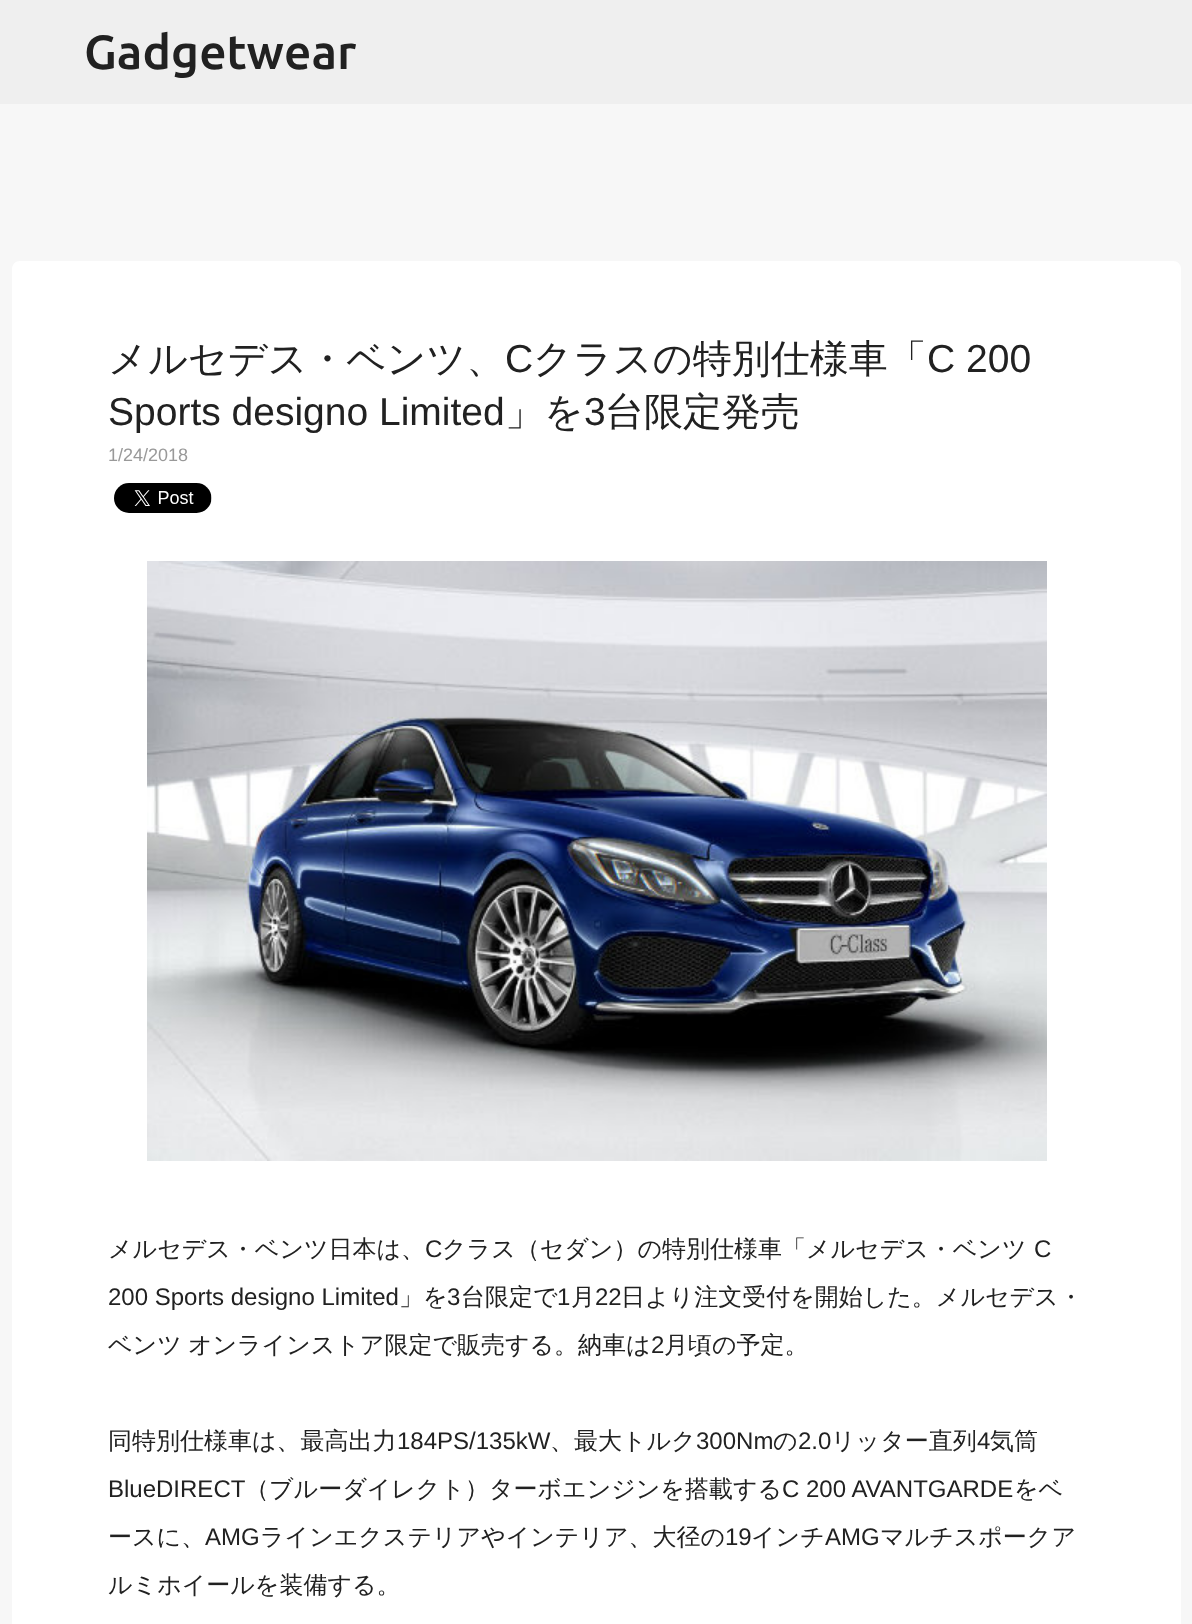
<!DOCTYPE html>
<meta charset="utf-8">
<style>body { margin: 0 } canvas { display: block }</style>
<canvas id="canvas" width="1192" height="1624"></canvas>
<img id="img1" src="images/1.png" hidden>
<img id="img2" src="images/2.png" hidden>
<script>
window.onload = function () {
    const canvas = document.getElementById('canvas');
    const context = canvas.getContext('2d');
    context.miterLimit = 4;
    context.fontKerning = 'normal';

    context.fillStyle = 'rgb(247, 247, 247)';
    context.fillRect(0, 0, 1192, 1624);
    context.fillStyle = 'rgb(239, 239, 239)';
    context.fillRect(0, 0, 1192, 104);
    context.fillStyle = 'rgb(255, 255, 255)';
    context.beginPath();
    context.moveTo(20, 261);
    context.lineTo(1173, 261);
    context.bezierCurveTo(1177.5, 261, 1181, 264.5, 1181, 269);
    context.lineTo(1181, 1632);
    context.lineTo(12, 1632);
    context.lineTo(12, 269);
    context.bezierCurveTo(12, 264.5, 15.5, 261, 20, 261);
    context.closePath();
    context.fill();
    context.drawImage(document.getElementById('img1'), 114, 483, 98, 30);
    context.drawImage(document.getElementById('img2'), 147, 561, 900, 600);
    context.font = '500 48px Ubuntu';
    context.fillStyle = 'rgb(33, 33, 33)';
    context.fillText('Gadgetwear', 84, 69);
    context.font = '500 39px WenQuanYi Zen Hei';
    context.fillText('メルセデス・ベンツ、', 108, 372);
    context.font = '39px Liberation Sans';
    context.fillText('C', 505, 372);
    context.font = '500 39px WenQuanYi Zen Hei';
    context.fillText('クラスの特別仕様車「', 533, 372);
    context.font = '39px Liberation Sans';
    context.fillText('C 200', 927, 372);
    context.fillText('Sports designo Limited', 108, 425);
    context.font = '500 39px WenQuanYi Zen Hei';
    context.fillText('」を', 505, 425);
    context.font = '39px Liberation Sans';
    context.fillText('3', 584, 425);
    context.font = '500 39px WenQuanYi Zen Hei';
    context.fillText('台限定発売', 605, 425);
    context.font = '18px Liberation Sans';
    context.fillStyle = 'rgb(153, 153, 153)';
    context.fillText('1/24/2018', 108, 461);
    context.font = '500 24px WenQuanYi Zen Hei';
    context.fillStyle = 'rgb(33, 33, 33)';
    context.fillText('メルセデス・ベンツ日本は、', 108, 1257);
    context.font = '24px Liberation Sans';
    context.fillText('C', 425, 1257);
    context.font = '500 24px WenQuanYi Zen Hei';
    context.fillText('クラス（セダン）の特別仕様車「メルセデス・ベンツ', 442, 1257);
    context.font = '24px Liberation Sans';
    context.fillText('C', 1034, 1257);
    context.fillText('200 Sports designo Limited', 108, 1305);
    context.font = '500 24px WenQuanYi Zen Hei';
    context.fillText('」を', 399, 1305);
    context.font = '24px Liberation Sans';
    context.fillText('3', 447, 1305);
    context.font = '500 24px WenQuanYi Zen Hei';
    context.fillText('台限定で', 461, 1305);
    context.font = '24px Liberation Sans';
    context.fillText('1', 557, 1305);
    context.font = '500 24px WenQuanYi Zen Hei';
    context.fillText('月', 571, 1305);
    context.font = '24px Liberation Sans';
    context.fillText('22', 595, 1305);
    context.font = '500 24px WenQuanYi Zen Hei';
    context.fillText('日より注文受付を開始した。メルセデス・', 621, 1305);
    context.wordSpacing = '-1px';
    context.fillText('ベンツ オンラインストア限定で販売する。納車は', 108, 1353);
    context.wordSpacing = '0px';
    context.font = '24px Liberation Sans';
    context.fillText('2', 651, 1353);
    context.font = '500 24px WenQuanYi Zen Hei';
    context.fillText('月頃の予定。', 664, 1353);
    context.fillText('同特別仕様車は、最高出力', 108, 1449);
    context.font = '24px Liberation Sans';
    context.fillText('184PS/135kW', 397, 1449);
    context.font = '500 24px WenQuanYi Zen Hei';
    context.fillText('、最大トルク', 550, 1449);
    context.font = '24px Liberation Sans';
    context.fillText('300Nm', 696, 1449);
    context.font = '500 24px WenQuanYi Zen Hei';
    context.fillText('の', 773, 1449);
    context.font = '24px Liberation Sans';
    context.fillText('2.0', 798, 1449);
    context.font = '500 24px WenQuanYi Zen Hei';
    context.fillText('リッター直列', 831, 1449);
    context.font = '24px Liberation Sans';
    context.fillText('4', 977, 1449);
    context.font = '500 24px WenQuanYi Zen Hei';
    context.fillText('気筒', 990, 1449);
    context.font = '24px Liberation Sans';
    context.fillText('BlueDIRECT', 108, 1497);
    context.font = '500 24px WenQuanYi Zen Hei';
    context.fillText('（ブルーダイレクト）ターボエンジンを搭載する', 245, 1497);
    context.font = '24px Liberation Sans';
    context.fillText('C 200 AVANTGARDE', 782, 1497);
    context.font = '500 24px WenQuanYi Zen Hei';
    context.fillText('をベ', 1014, 1497);
    context.fillText('ースに、', 108, 1545);
    context.font = '24px Liberation Sans';
    context.fillText('AMG', 205, 1545);
    context.font = '500 24px WenQuanYi Zen Hei';
    context.fillText('ラインエクステリアやインテリア、大径の', 260, 1545);
    context.font = '24px Liberation Sans';
    context.fillText('19', 725, 1545);
    context.font = '500 24px WenQuanYi Zen Hei';
    context.fillText('インチ', 751, 1545);
    context.font = '24px Liberation Sans';
    context.fillText('AMG', 825, 1545);
    context.font = '500 24px WenQuanYi Zen Hei';
    context.fillText('マルチスポークア', 880, 1545);
    context.fillText('ルミホイールを装備する。', 108, 1593);
};
</script>
